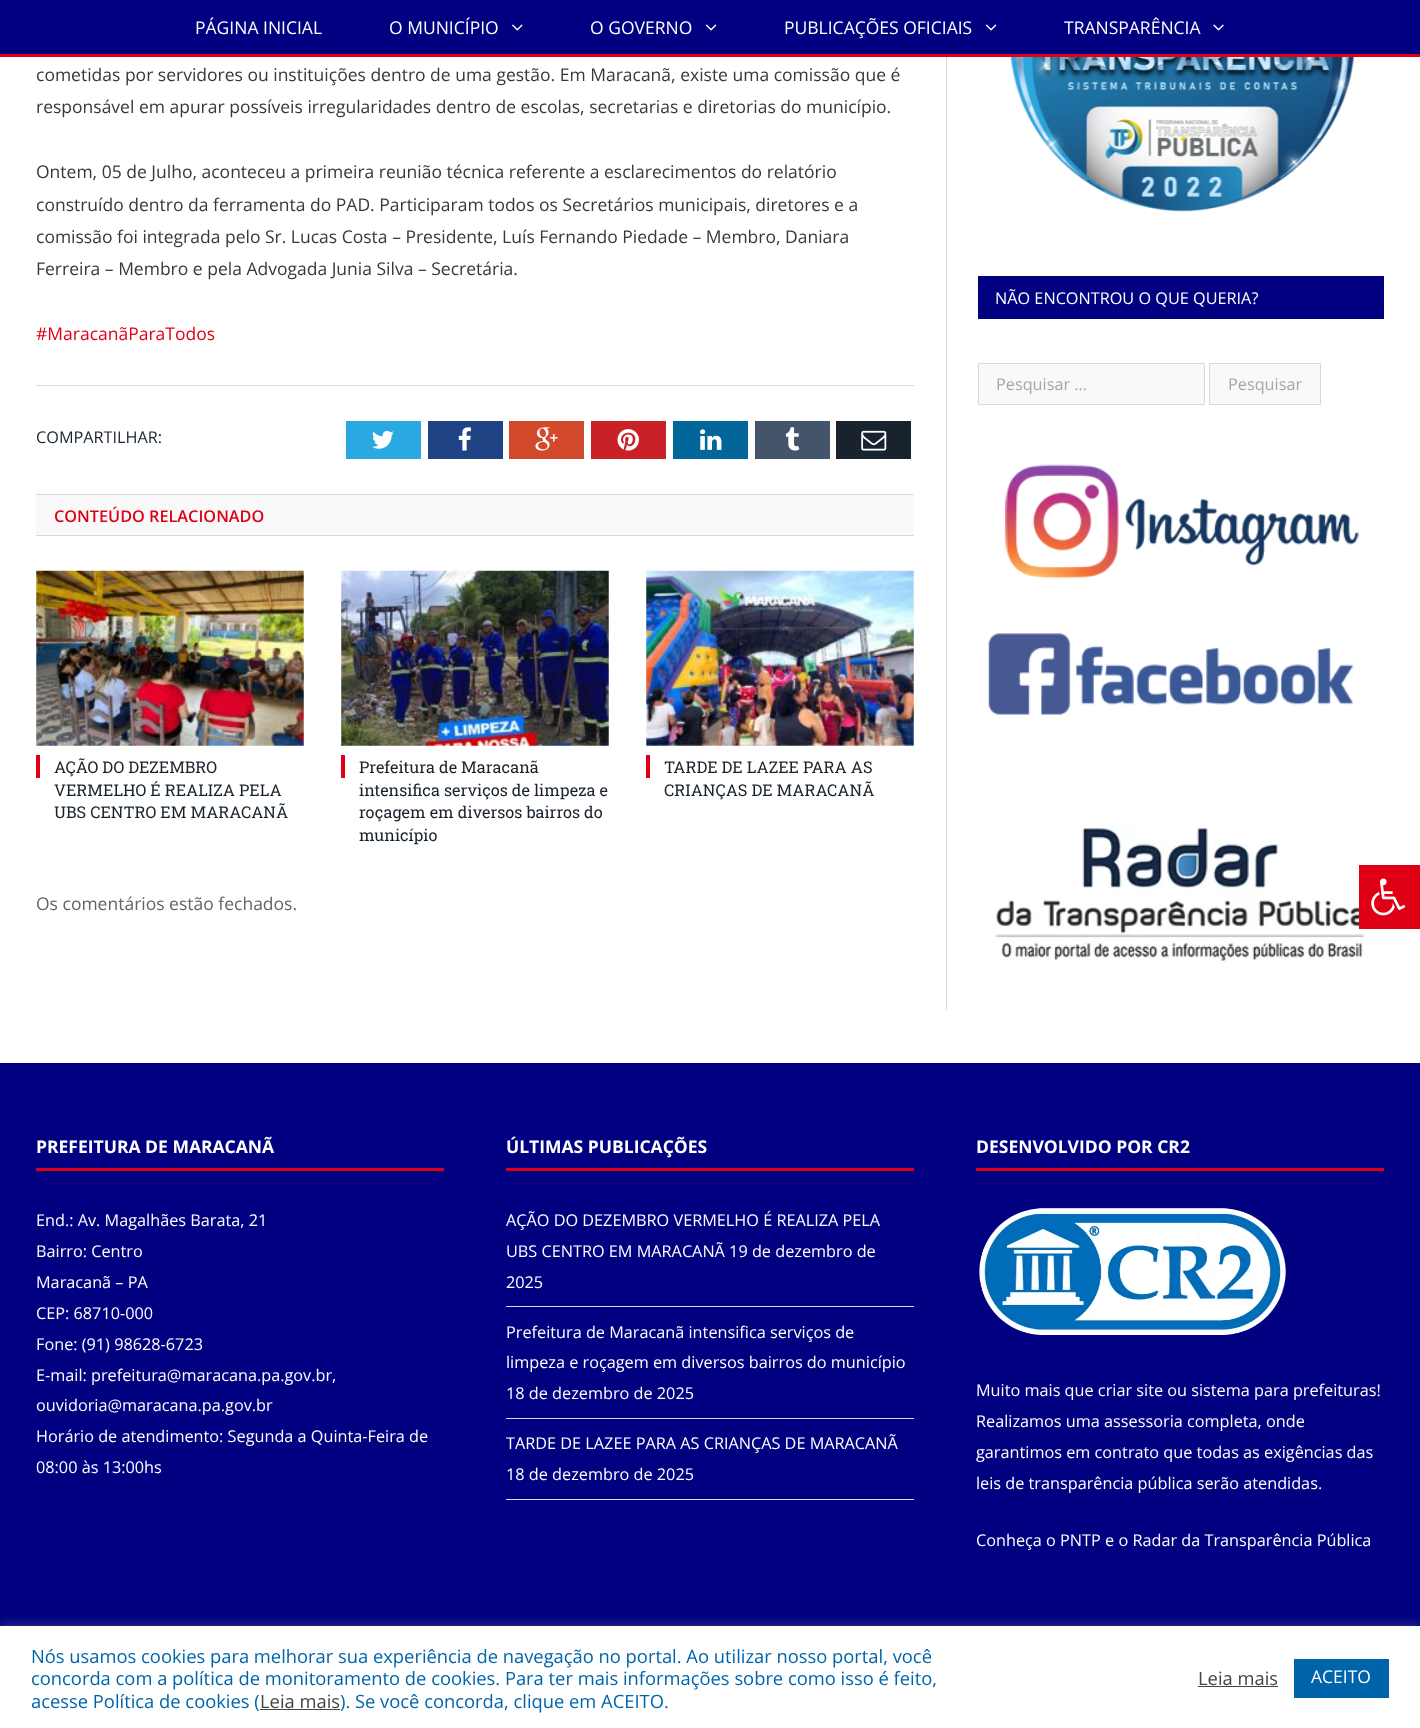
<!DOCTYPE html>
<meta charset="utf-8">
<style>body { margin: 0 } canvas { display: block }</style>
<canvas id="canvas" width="1420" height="1728"></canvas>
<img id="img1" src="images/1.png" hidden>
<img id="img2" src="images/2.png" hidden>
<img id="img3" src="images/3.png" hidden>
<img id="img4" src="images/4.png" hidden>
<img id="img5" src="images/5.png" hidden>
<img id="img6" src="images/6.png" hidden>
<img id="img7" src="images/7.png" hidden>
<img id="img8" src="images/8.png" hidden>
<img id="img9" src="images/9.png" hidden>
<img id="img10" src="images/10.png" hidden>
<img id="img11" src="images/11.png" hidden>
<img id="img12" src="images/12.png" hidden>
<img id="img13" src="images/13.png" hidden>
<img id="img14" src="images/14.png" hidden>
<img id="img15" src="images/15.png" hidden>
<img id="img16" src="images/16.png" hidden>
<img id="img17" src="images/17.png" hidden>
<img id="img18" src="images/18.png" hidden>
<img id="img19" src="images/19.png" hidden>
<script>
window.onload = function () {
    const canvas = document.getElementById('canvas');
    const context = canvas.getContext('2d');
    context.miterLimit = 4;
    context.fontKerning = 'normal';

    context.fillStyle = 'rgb(255, 255, 255)';
    context.fillRect(0, 0, 1420, 1728);
    context.fillStyle = 'rgb(0, 0, 128)';
    context.fillRect(0, 0, 1420, 54);
    context.fillStyle = 'rgb(223, 0, 21)';
    context.fillRect(0, 54, 1420, 3);
    context.drawImage(document.getElementById('img1'), 512, 24, 11, 7);
    context.drawImage(document.getElementById('img2'), 705, 24, 12, 7);
    context.drawImage(document.getElementById('img2'), 985, 24, 12, 7);
    context.drawImage(document.getElementById('img3'), 1213, 24, 11, 7);
    context.fillStyle = 'rgb(217, 217, 217)';
    context.fillRect(36, 385, 878, 1);
    context.fillStyle = 'rgb(42, 169, 224)';
    context.fillRect(346, 421, 75, 38);
    context.drawImage(document.getElementById('img4'), 372, 430, 22, 19);
    context.fillStyle = 'rgb(32, 67, 133)';
    context.fillRect(428, 421, 75, 38);
    context.drawImage(document.getElementById('img5'), 458, 427, 13, 24);
    context.fillStyle = 'rgb(211, 73, 44)';
    context.fillRect(509, 421, 75, 38);
    context.drawImage(document.getElementById('img6'), 535, 427, 23, 24);
    context.fillStyle = 'rgb(202, 33, 40)';
    context.fillRect(591, 421, 75, 38);
    context.drawImage(document.getElementById('img7'), 617, 429, 22, 22);
    context.fillStyle = 'rgb(2, 102, 154)';
    context.fillRect(673, 421, 75, 38);
    context.drawImage(document.getElementById('img8'), 700, 429, 22, 21);
    context.fillStyle = 'rgb(68, 84, 107)';
    context.fillRect(755, 421, 75, 38);
    context.drawImage(document.getElementById('img9'), 785, 427, 15, 24);
    context.fillStyle = 'rgb(25, 35, 45)';
    context.fillRect(836, 421, 75, 38);
    context.drawImage(document.getElementById('img10'), 861, 430, 26, 21);
    context.fillStyle = 'rgb(249, 249, 249)';
    context.fillRect(36, 495, 878, 40);
    context.fillStyle = 'rgb(217, 217, 217)';
    context.fillRect(36, 494, 878, 1);
    context.fillRect(36, 535, 878, 1);
    context.drawImage(document.getElementById('img11'), 36, 570, 268, 176);
    context.fillStyle = 'rgb(223, 0, 21)';
    context.fillRect(36, 755, 4, 23);
    context.drawImage(document.getElementById('img12'), 341, 570, 268, 176);
    context.fillRect(341, 755, 4, 23);
    context.drawImage(document.getElementById('img13'), 646, 570, 268, 176);
    context.fillRect(646, 755, 4, 23);
    context.fillStyle = 'rgb(217, 217, 217)';
    context.fillRect(946, 57, 1, 953);
    context.drawImage(document.getElementById('img14'), 1010, 57, 345, 155);
    context.fillStyle = 'rgb(0, 0, 128)';
    context.fillRect(978, 276, 406, 43);
    context.fillStyle = 'rgb(249, 249, 249)';
    context.beginPath();
    context.rect(978.5, 363.5, 226, 41);
    context.fill();
    context.strokeStyle = 'rgb(217, 217, 217)';
    context.stroke();
    context.beginPath();
    context.rect(1209.5, 363.5, 111, 41);
    context.fill();
    context.stroke();
    context.drawImage(document.getElementById('img15'), 1004, 464, 355, 115);
    context.drawImage(document.getElementById('img16'), 988, 633, 366, 82);
    context.drawImage(document.getElementById('img17'), 995, 825, 372, 136);
    context.fillStyle = 'rgb(0, 0, 128)';
    context.fillRect(0, 1063, 1420, 563);
    context.fillStyle = 'rgb(223, 0, 21)';
    context.fillRect(36, 1168, 408, 3);
    context.fillRect(506, 1168, 408, 3);
    context.fillStyle = 'rgb(217, 217, 217)';
    context.fillRect(506, 1306, 408, 1);
    context.fillRect(506, 1418, 408, 1);
    context.fillRect(506, 1499, 408, 1);
    context.fillStyle = 'rgb(223, 0, 21)';
    context.fillRect(976, 1168, 408, 3);
    context.drawImage(document.getElementById('img18'), 979, 1208, 308, 128);
    context.fillRect(1359, 865, 61, 64);
    context.drawImage(document.getElementById('img19'), 1371, 878, 35, 38);
    context.fillStyle = 'rgba(172, 171, 171, 0.3)';
    context.filter = 'blur(6px)';
    context.beginPath();
    context.rect(0, 1625, 1420, 103);
    context.fill();
    context.filter = 'none';
    context.fillStyle = 'rgb(255, 255, 255)';
    context.fillRect(0, 1626, 1420, 102);
    context.fillStyle = 'rgb(68, 68, 68)';
    context.fillRect(260, 1709, 80, 1);
    context.fillRect(1198, 1686, 80, 1);
    context.fillStyle = 'rgb(0, 100, 171)';
    context.fillRect(1294, 1659, 95, 39);
    context.font = '17.5px Open Sans';
    context.fillStyle = 'rgb(255, 255, 255)';
    context.fillText('PÁGINA INICIAL', 195, 34);
    context.fillText('O MUNICÍPIO', 389, 34);
    context.fillText('O GOVERNO', 590, 34);
    context.fillText('PUBLICAÇÕES OFICIAIS', 784, 34);
    context.fillText('TRANSPARÊNCIA', 1064, 34);
    context.fillStyle = 'rgb(56, 56, 56)';
    context.fillText('cometidas por servidores ou instituições dentro de uma gestão. Em Maracanã, existe uma comissão que é', 36, 81);
    context.fillText('responsável em apurar possíveis irregularidades dentro de escolas, secretarias e diretorias do município.', 36, 113);
    context.fillText('Ontem, 05 de Julho, aconteceu a primeira reunião técnica referente a esclarecimentos do relatório', 36, 178);
    context.fillText('construído dentro da ferramenta do PAD. Participaram todos os Secretários municipais, diretores e a', 36, 211);
    context.fillText('comissão foi integrada pelo Sr. Lucas Costa – Presidente, Luís Fernando Piedade – Membro, Daniara', 36, 243);
    context.fillText('Ferreira – Membro e pela Advogada Junia Silva – Secretária.', 36, 275);
    context.fillStyle = 'rgb(223, 0, 21)';
    context.fillText('#MaracanãParaTodos', 36, 340);
    context.font = '16.25px Open Sans';
    context.fillStyle = 'rgb(25, 35, 45)';
    context.fillText('COMPARTILHAR:', 36, 443);
    context.font = '600 16.25px Open Sans';
    context.fillStyle = 'rgb(223, 0, 21)';
    context.fillText('CONTEÚDO RELACIONADO', 54, 522);
    context.font = '16.25px Roboto Slab';
    context.fillStyle = 'rgb(25, 35, 45)';
    context.fillText('AÇÃO DO DEZEMBRO', 54, 773);
    context.fillText('VERMELHO É REALIZA PELA', 54, 796);
    context.fillText('UBS CENTRO EM MARACANÃ', 54, 818);
    context.fillText('Prefeitura de Maracanã', 359, 773);
    context.fillText('intensifica serviços de limpeza e', 359, 796);
    context.fillText('roçagem em diversos bairros do', 359, 818);
    context.fillText('município', 359, 841);
    context.fillText('TARDE DE LAZEE PARA AS', 664, 773);
    context.fillText('CRIANÇAS DE MARACANÃ', 664, 796);
    context.font = '17.5px Open Sans';
    context.fillStyle = 'rgb(96, 101, 105)';
    context.fillText('Os comentários estão fechados.', 36, 910);
    context.font = '16.25px Open Sans';
    context.fillStyle = 'rgb(255, 255, 255)';
    context.fillText('NÃO ENCONTROU O QUE QUERIA?', 995, 304);
    context.fillStyle = 'rgb(166, 166, 166)';
    context.fillText('Pesquisar …', 996, 390);
    context.fillText('Pesquisar', 1228, 390);
    context.font = 'bold 17.5px Open Sans';
    context.fillStyle = 'rgb(255, 255, 255)';
    context.fillText('PREFEITURA DE MARACANÃ', 36, 1153);
    context.font = '16.25px Open Sans';
    context.fillText('End.: Av. Magalhães Barata, 21', 36, 1226);
    context.fillText('Bairro: Centro', 36, 1257);
    context.fillText('Maracanã – PA', 36, 1288);
    context.fillText('CEP: 68710-000', 36, 1319);
    context.fillText('Fone: (91) 98628-6723', 36, 1350);
    context.fillText('E-mail: prefeitura@maracana.pa.gov.br,', 36, 1381);
    context.fillText('ouvidoria@maracana.pa.gov.br', 36, 1411);
    context.fillText('Horário de atendimento: Segunda a Quinta-Feira de', 36, 1442);
    context.fillText('08:00 às 13:00hs', 36, 1473);
    context.font = 'bold 17.5px Open Sans';
    context.fillText('ÚLTIMAS PUBLICAÇÕES', 506, 1153);
    context.font = '16.25px Open Sans';
    context.fillText('AÇÃO DO DEZEMBRO VERMELHO É REALIZA PELA', 506, 1226);
    context.fillText('UBS CENTRO EM MARACANÃ 19 de dezembro de', 506, 1257);
    context.fillText('2025', 506, 1288);
    context.fillText('Prefeitura de Maracanã intensifica serviços de', 506, 1338);
    context.fillText('limpeza e roçagem em diversos bairros do município', 506, 1368);
    context.fillText('18 de dezembro de 2025', 506, 1399);
    context.fillText('TARDE DE LAZEE PARA AS CRIANÇAS DE MARACANÃ', 506, 1449);
    context.fillText('18 de dezembro de 2025', 506, 1480);
    context.font = 'bold 17.5px Open Sans';
    context.fillText('DESENVOLVIDO POR CR2', 976, 1153);
    context.font = '16.25px Open Sans';
    context.fillText('Muito mais que criar site ou sistema para prefeituras!', 976, 1396);
    context.fillText('Realizamos uma assessoria completa, onde', 976, 1427);
    context.fillText('garantimos em contrato que todas as exigências das', 976, 1458);
    context.fillText('leis de transparência pública serão atendidas.', 976, 1489);
    context.fillText('Conheça o PNTP e o Radar da Transparência Pública', 976, 1546);
    context.font = '18.35px Open Sans';
    context.fillStyle = 'rgb(0, 100, 171)';
    context.fillText('Nós usamos cookies para melhorar sua experiência de navegação no portal. Ao utilizar nosso portal, você', 31, 1663);
    context.fillText('concorda com a política de monitoramento de cookies. Para ter mais informações sobre como isso é feito,', 31, 1685);
    context.fillText('acesse Política de cookies (', 31, 1708);
    context.fillStyle = 'rgb(68, 68, 68)';
    context.fillText('Leia mais', 260, 1708);
    context.fillStyle = 'rgb(0, 100, 171)';
    context.fillText('). Se você concorda, clique em ACEITO.', 340, 1708);
    context.fillStyle = 'rgb(68, 68, 68)';
    context.fillText('Leia mais', 1198, 1685);
    context.font = '17.5px Open Sans';
    context.fillStyle = 'rgb(255, 255, 255)';
    context.fillText('ACEITO', 1311, 1683);
};
</script>
